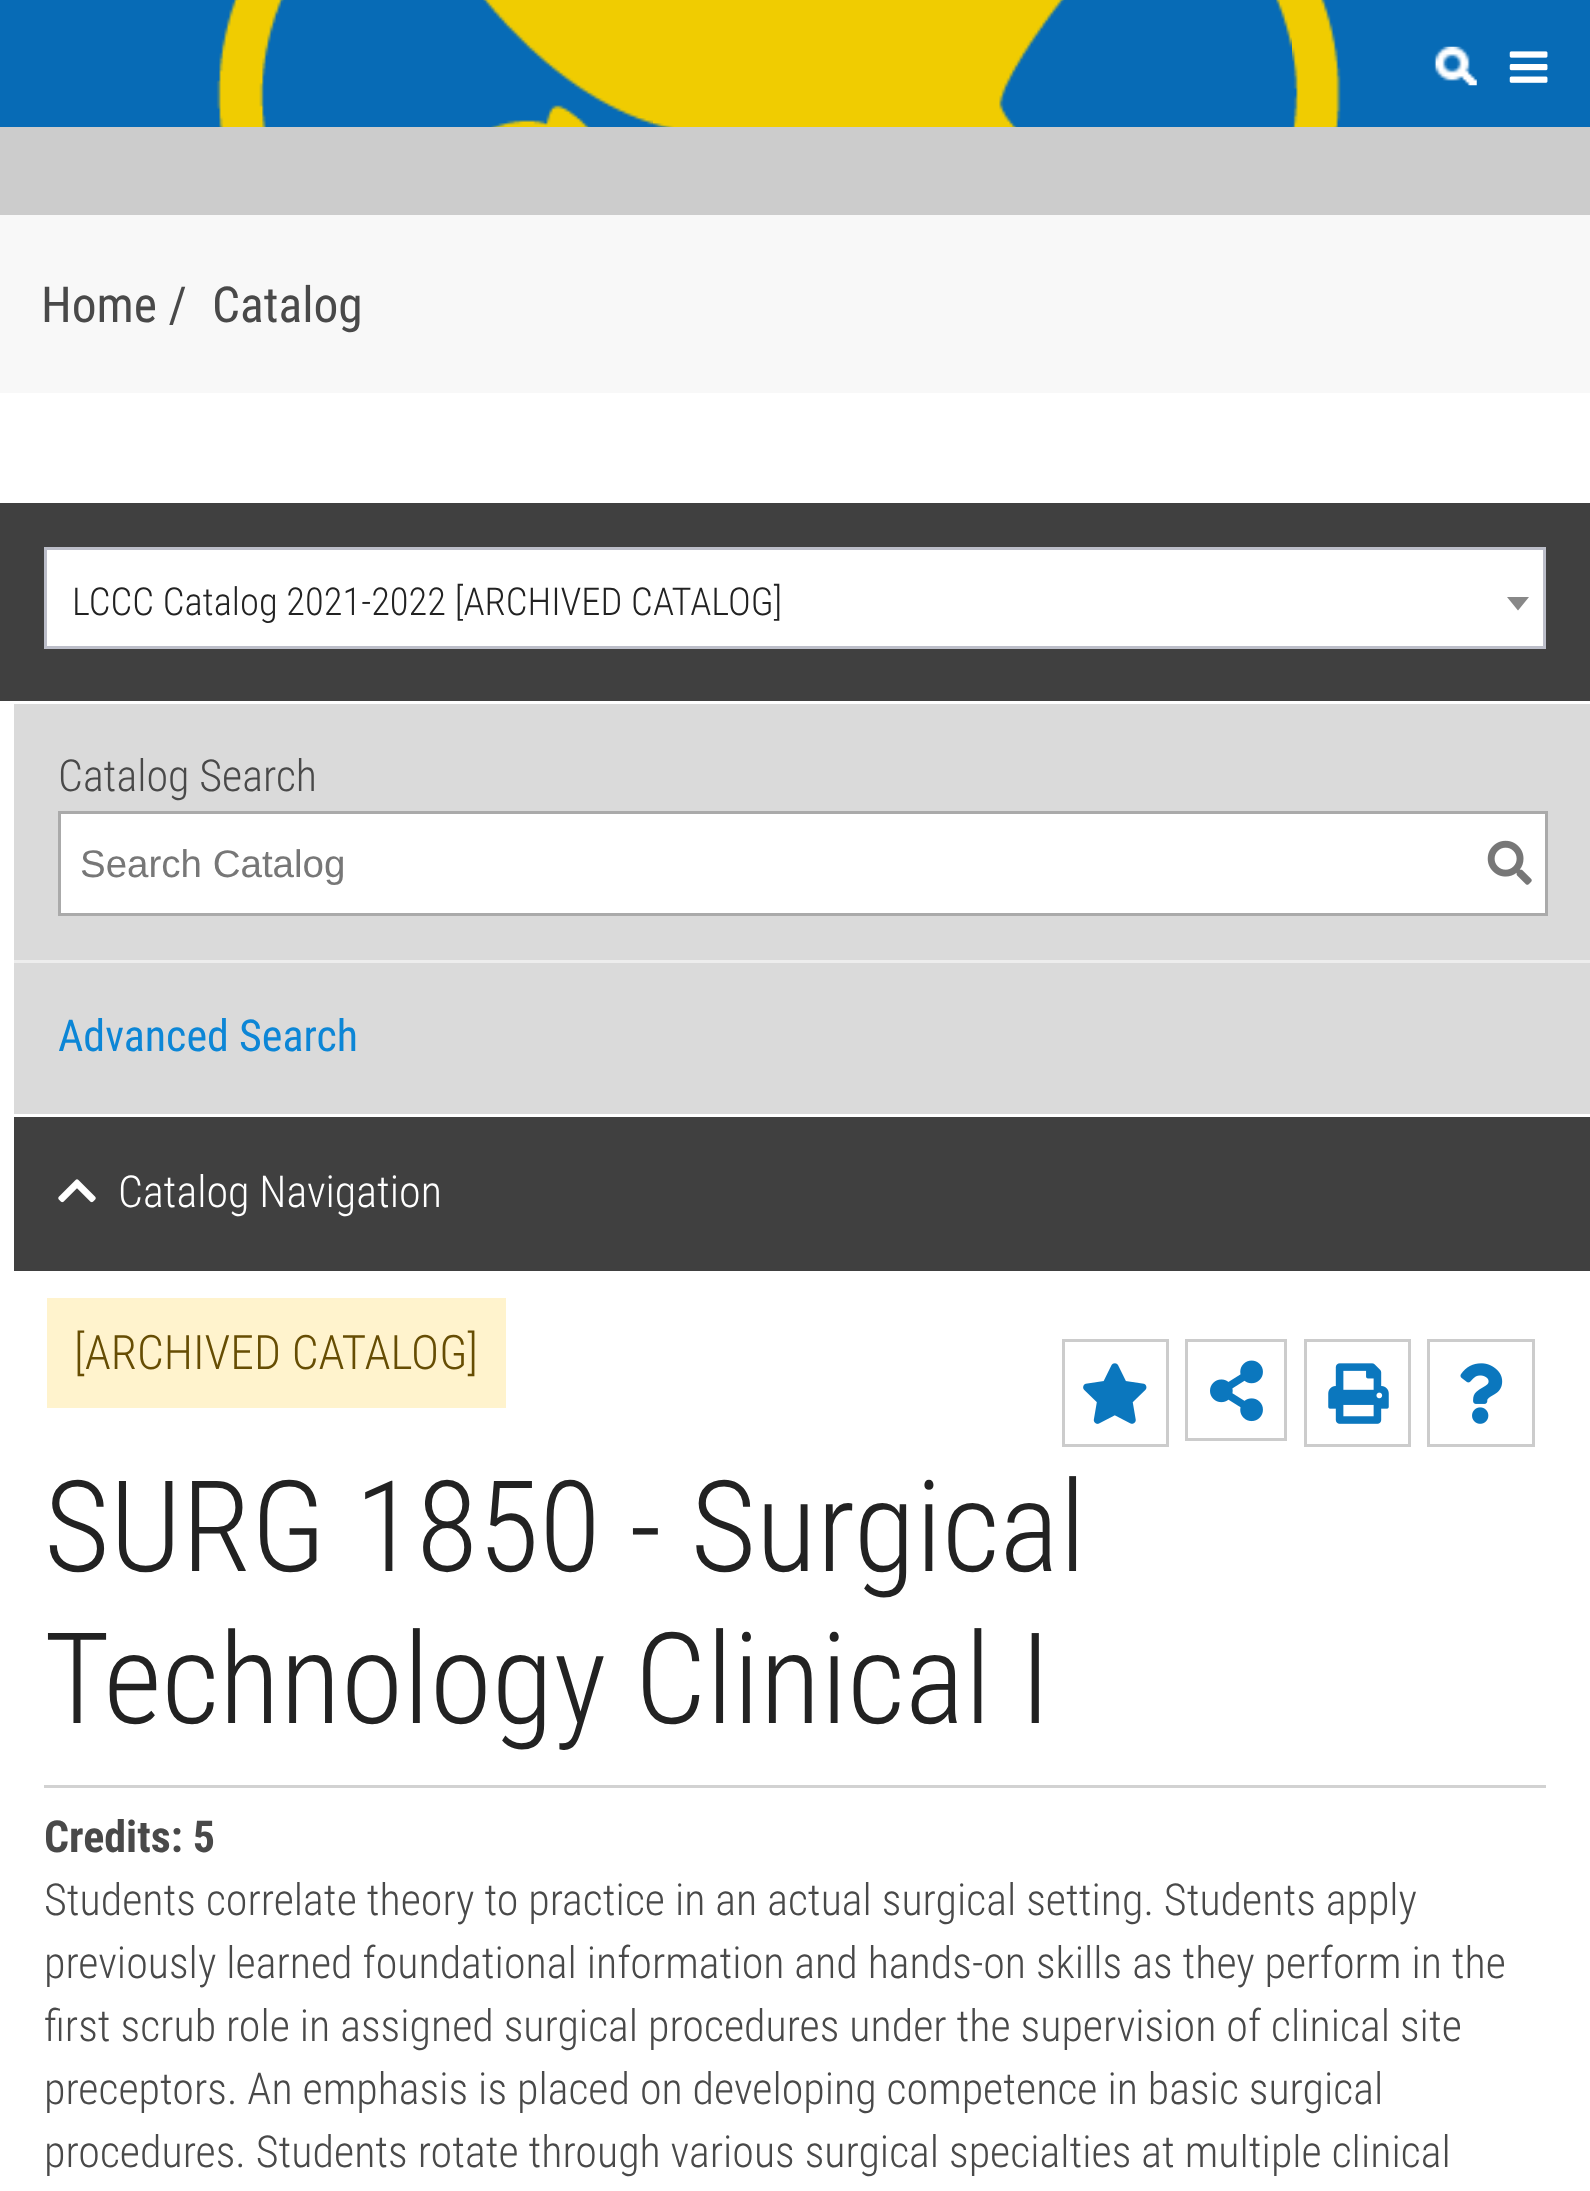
<!DOCTYPE html>
<meta charset="utf-8">
<style>body { margin: 0 } canvas { display: block }</style>
<canvas id="canvas" width="1590" height="2191"></canvas>
<img id="img1" src="images/1.png" hidden>
<img id="img2" src="images/2.png" hidden>
<img id="img3" src="images/3.png" hidden>
<img id="img4" src="images/4.png" hidden>
<img id="img5" src="images/5.png" hidden>
<img id="img6" src="images/6.png" hidden>
<img id="img7" src="images/7.png" hidden>
<img id="img8" src="images/8.png" hidden>
<img id="img9" src="images/9.png" hidden>
<script>
window.onload = function () {
    const canvas = document.getElementById('canvas');
    const context = canvas.getContext('2d');
    context.miterLimit = 4;
    context.fontKerning = 'normal';

    context.fillStyle = 'rgb(255, 255, 255)';
    context.fillRect(0, 0, 1590, 2191);
    context.fillStyle = 'rgb(7, 107, 182)';
    context.fillRect(0, 0, 1590, 127);
    context.drawImage(document.getElementById('img1'), 216, 0, 1125, 127);
    context.drawImage(document.getElementById('img2'), 1434, 46, 43, 40);
    context.drawImage(document.getElementById('img3'), 1509, 51, 39, 32);
    context.fillStyle = 'rgb(204, 204, 204)';
    context.fillRect(0, 127, 1590, 88);
    context.fillStyle = 'rgb(248, 248, 248)';
    context.fillRect(0, 215, 1590, 178);
    context.fillStyle = 'rgb(64, 64, 64)';
    context.fillRect(0, 503, 1590, 198);
    context.fillStyle = 'rgb(255, 255, 255)';
    context.beginPath();
    context.rect(45.5, 548.5, 1499, 99);
    context.fill();
    context.strokeStyle = 'rgb(188, 190, 201)';
    context.lineWidth = 3;
    context.stroke();
    context.fillStyle = 'rgb(136, 136, 136)';
    context.beginPath();
    context.moveTo(1507, 597);
    context.lineTo(1529, 597);
    context.lineTo(1518, 610.5);
    context.closePath();
    context.fill();
    context.fillStyle = 'rgb(218, 218, 218)';
    context.fillRect(14, 704, 1576, 410);
    context.fillStyle = 'rgb(255, 255, 255)';
    context.beginPath();
    context.rect(59.5, 812.5, 1487, 102);
    context.fill();
    context.strokeStyle = 'rgb(170, 170, 170)';
    context.stroke();
    context.drawImage(document.getElementById('img4'), 1487, 840, 45, 45);
    context.fillStyle = 'rgb(237, 237, 237)';
    context.fillRect(14, 960, 1576, 3);
    context.fillStyle = 'rgb(64, 64, 64)';
    context.fillRect(14, 1117, 1576, 154);
    context.drawImage(document.getElementById('img5'), 58, 1179, 38, 24);
    context.fillStyle = 'rgb(255, 243, 205)';
    context.fillRect(47, 1298, 459, 110);
    context.strokeStyle = 'rgb(204, 204, 204)';
    context.strokeRect(1063.5, 1340.5, 104, 105);
    context.drawImage(document.getElementById('img6'), 1083, 1363, 64, 61);
    context.strokeRect(1186.5, 1340.5, 99, 99);
    context.drawImage(document.getElementById('img7'), 1210, 1360, 53, 62);
    context.strokeRect(1305.5, 1340.5, 104, 105);
    context.drawImage(document.getElementById('img8'), 1328, 1363, 61, 61);
    context.strokeRect(1428.5, 1340.5, 105, 105);
    context.drawImage(document.getElementById('img9'), 1460, 1363, 43, 61);
    context.fillStyle = 'rgb(210, 210, 210)';
    context.fillRect(44, 1785, 1502, 3);
    context.font = '49.5px Roboto Condensed';
    context.fillStyle = 'rgb(73, 73, 73)';
    context.fillText('Home /', 41, 322);
    context.fillText('Catalog', 212, 322);
    context.font = '300 38.5px Roboto Condensed';
    context.fillStyle = 'rgb(34, 34, 34)';
    context.fillText('LCCC Catalog 2021-2022 [ARCHIVED CATALOG]', 72, 615);
    context.font = '300 44px Roboto Condensed';
    context.fillStyle = 'rgb(73, 73, 73)';
    context.fillText('Catalog Search', 58, 791);
    context.font = '38.5px Liberation Sans';
    context.fillStyle = 'rgb(119, 119, 119)';
    context.fillText('Search Catalog', 80, 877);
    context.font = '44px Roboto Condensed';
    context.fillStyle = 'rgb(12, 134, 214)';
    context.fillText('Advanced Search', 58, 1051);
    context.font = '300 44px Roboto Condensed';
    context.fillStyle = 'rgb(255, 255, 255)';
    context.fillText('Catalog Navigation', 118, 1207);
    context.font = '300 47.5px Roboto Condensed';
    context.fillStyle = 'rgb(102, 77, 3)';
    context.fillText('[ARCHIVED CATALOG]', 74, 1369);
    context.font = '300 126.5px Roboto Condensed';
    context.fillStyle = 'rgb(34, 34, 34)';
    context.fillText('SURG 1850 - Surgical', 44, 1571);
    context.fillText('Technology Clinical I', 44, 1723);
    context.font = 'bold 44px Roboto Condensed';
    context.fillStyle = 'rgb(73, 73, 73)';
    context.fillText('Credits: 5', 44, 1852);
    context.font = '300 44px Roboto Condensed';
    context.fillText('Students correlate theory to practice in an actual surgical setting. Students apply', 44, 1915);
    context.fillText('previously learned foundational information and hands-on skills as they perform in the', 44, 1978);
    context.fillText('first scrub role in assigned surgical procedures under the supervision of clinical site', 44, 2041);
    context.fillText('preceptors. An emphasis is placed on developing competence in basic surgical', 44, 2104);
    context.fillText('procedures. Students rotate through various surgical specialties at multiple clinical', 44, 2167);
};
</script>
